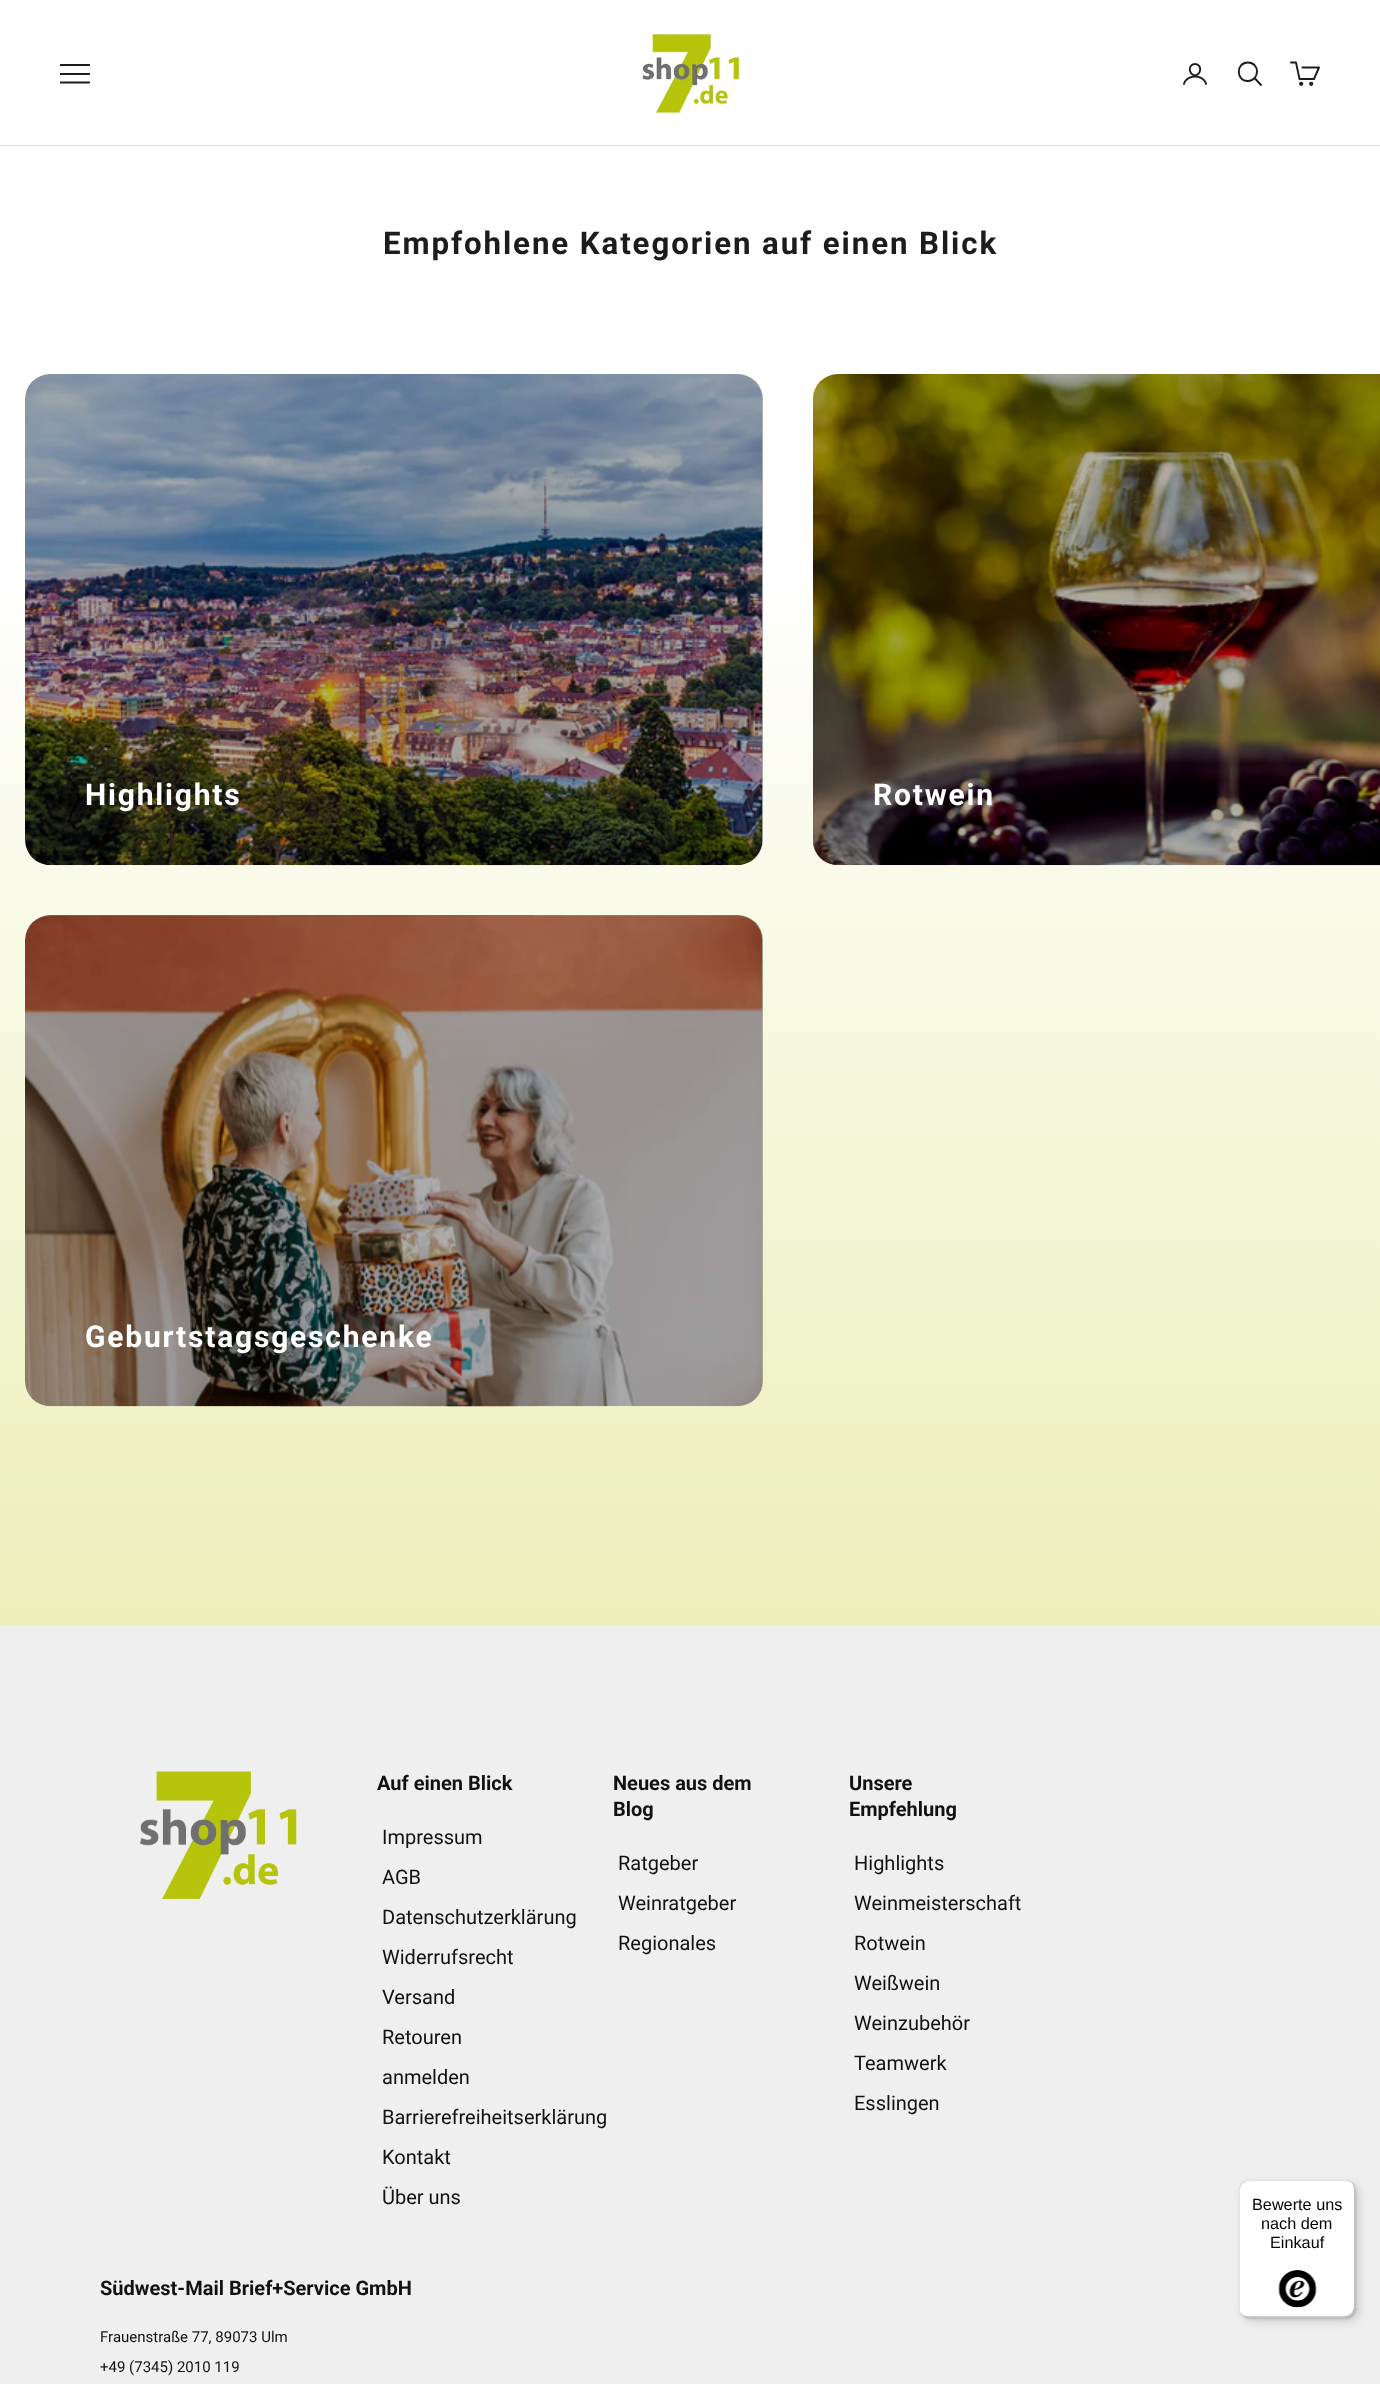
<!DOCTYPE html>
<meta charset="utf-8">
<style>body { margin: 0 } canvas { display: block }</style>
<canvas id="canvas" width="1380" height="2384"></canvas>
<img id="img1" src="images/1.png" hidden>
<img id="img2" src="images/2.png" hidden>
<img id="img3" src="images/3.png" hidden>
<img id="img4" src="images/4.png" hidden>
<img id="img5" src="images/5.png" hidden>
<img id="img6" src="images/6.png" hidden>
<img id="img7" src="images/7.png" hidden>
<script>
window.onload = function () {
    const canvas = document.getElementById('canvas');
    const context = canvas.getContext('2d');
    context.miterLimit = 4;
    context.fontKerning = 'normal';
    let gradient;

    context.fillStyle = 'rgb(255, 255, 255)';
    context.fillRect(0, 0, 1380, 2384);
    context.fillStyle = 'rgb(221, 221, 221)';
    context.fillRect(0, 145, 1380, 1);
    context.beginPath();
    context.moveTo(61, 82.5);
    context.lineTo(89, 82.5);
    context.moveTo(61, 74);
    context.lineTo(89, 74);
    context.moveTo(61, 65);
    context.lineTo(89, 65);
    context.strokeStyle = 'rgb(28, 28, 28)';
    context.lineWidth = 1.9;
    context.lineCap = 'square';
    context.stroke();
    context.drawImage(document.getElementById('img1'), 642, 33, 98, 81);
    context.drawImage(document.getElementById('img2'), 1182, 63, 26, 22);
    context.beginPath();
    context.moveTo(1248, 62.5);
    context.bezierCurveTo(1235.5, 62.5, 1236, 81.5, 1248, 81);
    context.bezierCurveTo(1260, 80.5, 1260, 62.5, 1248, 62.5);
    context.closePath();
    context.lineCap = 'butt';
    context.stroke();
    context.beginPath();
    context.moveTo(1255, 78.5);
    context.lineTo(1261, 85);
    context.lineCap = 'round';
    context.stroke();
    context.beginPath();
    context.moveTo(1302.5, 67.5);
    context.lineTo(1319, 67.5);
    context.lineTo(1314, 79);
    context.lineTo(1299.5, 79);
    context.lineTo(1296, 62.5);
    context.lineTo(1291, 62.5);
    context.lineJoin = 'round';
    context.stroke();
    context.beginPath();
    context.arc(1301.2, 83.8, 1.2, 0, 2 * Math.PI);
    context.stroke();
    context.beginPath();
    context.arc(1311.2, 83.8, 1.2, 0, 2 * Math.PI);
    context.stroke();
    gradient = context.createLinearGradient(690, 1626, 690, 79);
    gradient.addColorStop(0, 'rgb(236, 239, 185)');
    gradient.addColorStop(0.7, 'rgb(255, 255, 255)');
    context.fillStyle = gradient;
    context.fillRect(0, 582, 1380, 1044);
    context.drawImage(document.getElementById('img3'), 25, 374, 738, 492);
    context.fillStyle = 'rgba(0, 0, 0, 0.3)';
    context.beginPath();
    context.roundRect(25, 374, 738, 491, 25);
    context.fill();
    context.drawImage(document.getElementById('img4'), 813, 374, 567, 492);
    context.beginPath();
    context.roundRect(813, 374, 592, 491, 25);
    context.fill();
    context.drawImage(document.getElementById('img5'), 25, 915, 738, 492);
    context.beginPath();
    context.roundRect(25, 915, 738, 491, 25);
    context.fill();
    context.fillStyle = 'rgb(239, 239, 239)';
    context.fillRect(0, 1626, 1380, 758);
    context.drawImage(document.getElementById('img6'), 140, 1771, 157, 128);
    context.fillStyle = 'rgba(0, 0, 0, 0.15)';
    context.filter = 'blur(5px)';
    context.beginPath();
    context.roundRect(1243, 2184, 116, 137, 10);
    context.fill();
    context.filter = 'none';
    context.filter = 'blur(1px)';
    context.beginPath();
    context.roundRect(1240, 2181, 116, 138, 10);
    context.fill();
    context.filter = 'none';
    context.fillStyle = 'rgb(255, 255, 255)';
    context.beginPath();
    context.roundRect(1239, 2180, 116, 138, 10);
    context.fill();
    context.fillStyle = 'rgba(0, 0, 0, 0.1)';
    context.beginPath();
    context.moveTo(1250, 2181);
    context.lineTo(1346, 2181);
    context.bezierCurveTo(1349, 2181, 1351, 2182, 1353, 2183);
    context.bezierCurveTo(1351, 2181, 1348, 2180, 1345, 2180);
    context.lineTo(1249, 2180);
    context.bezierCurveTo(1243, 2180, 1239, 2184, 1239, 2190);
    context.lineTo(1239, 2308);
    context.bezierCurveTo(1239, 2311, 1240, 2314, 1243, 2316);
    context.bezierCurveTo(1241, 2314, 1240, 2311, 1240, 2309);
    context.lineTo(1240, 2191);
    context.bezierCurveTo(1240, 2186, 1244, 2181, 1250, 2181);
    context.closePath();
    context.fill();
    context.fillStyle = 'rgba(0, 0, 0, 0.2)';
    context.beginPath();
    context.moveTo(1240, 2312);
    context.bezierCurveTo(1242, 2316, 1245, 2318, 1249, 2318);
    context.lineTo(1345, 2318);
    context.bezierCurveTo(1351, 2318, 1355, 2314, 1355, 2308);
    context.lineTo(1355, 2190);
    context.bezierCurveTo(1355, 2187, 1354, 2184, 1352, 2182);
    context.bezierCurveTo(1353, 2184, 1354, 2186, 1354, 2189);
    context.lineTo(1354, 2306);
    context.bezierCurveTo(1354, 2312, 1349, 2316, 1344, 2316);
    context.lineTo(1248, 2316);
    context.bezierCurveTo(1245, 2316, 1242, 2315, 1240, 2312);
    context.closePath();
    context.fill();
    context.fillStyle = 'rgba(50, 50, 50, 0.2)';
    context.beginPath();
    context.moveTo(1241, 2315);
    context.bezierCurveTo(1243, 2317, 1246, 2318, 1249, 2318);
    context.lineTo(1345, 2318);
    context.bezierCurveTo(1351, 2318, 1355, 2314, 1355, 2308);
    context.lineTo(1355, 2190);
    context.bezierCurveTo(1355, 2187, 1354, 2184, 1351, 2182);
    context.bezierCurveTo(1353, 2184, 1354, 2187, 1354, 2189);
    context.lineTo(1354, 2307);
    context.bezierCurveTo(1354, 2312, 1350, 2317, 1344, 2317);
    context.lineTo(1248, 2317);
    context.bezierCurveTo(1245, 2317, 1243, 2316, 1241, 2315);
    context.closePath();
    context.fill();
    context.fillStyle = 'rgba(255, 255, 255, 0.3)';
    context.beginPath();
    context.moveTo(1240, 2313);
    context.bezierCurveTo(1242, 2316, 1245, 2318, 1249, 2318);
    context.lineTo(1345, 2318);
    context.bezierCurveTo(1351, 2318, 1355, 2314, 1355, 2308);
    context.lineTo(1355, 2190);
    context.bezierCurveTo(1355, 2187, 1354, 2184, 1351, 2182);
    context.bezierCurveTo(1353, 2184, 1354, 2187, 1354, 2189);
    context.lineTo(1354, 2307);
    context.bezierCurveTo(1354, 2312, 1350, 2317, 1344, 2317);
    context.lineTo(1248, 2317);
    context.bezierCurveTo(1245, 2317, 1242, 2315, 1240, 2313);
    context.closePath();
    context.fill();
    context.drawImage(document.getElementById('img7'), 1278, 2270, 39, 38);
    context.letterSpacing = '1.9px';
    context.font = 'bold 31.25px Roboto';
    context.fillStyle = 'rgb(28, 28, 28)';
    context.fillText('Empfohlene Kategorien auf einen Blick', 383, 254);
    context.letterSpacing = '1.8px';
    context.font = 'bold 30px Roboto';
    context.fillStyle = 'rgb(255, 255, 255)';
    context.fillText('Highlights', 85, 805);
    context.fillText('Rotwein', 873, 805);
    context.fillText('Geburtstagsgeschenke', 85, 1347);
    context.letterSpacing = '0px';
    context.font = 'bold 20px Roboto';
    context.fillStyle = 'rgb(18, 18, 18)';
    context.fillText('Auf einen Blick', 377, 1790);
    context.font = '20px Roboto';
    context.fillText('Impressum', 382, 1844);
    context.fillText('AGB', 382, 1884);
    context.fillText('Datenschutzerklärung', 382, 1924);
    context.fillText('Widerrufsrecht', 382, 1964);
    context.fillText('Versand', 382, 2004);
    context.fillText('Retouren', 382, 2044);
    context.fillText('anmelden', 382, 2084);
    context.fillText('Barrierefreiheitserklärung', 382, 2124);
    context.fillText('Kontakt', 382, 2164);
    context.fillText('Über uns', 382, 2204);
    context.font = 'bold 20px Roboto';
    context.fillText('Neues aus dem', 613, 1790);
    context.fillText('Blog', 613, 1816);
    context.font = '20px Roboto';
    context.fillText('Ratgeber', 618, 1870);
    context.fillText('Weinratgeber', 618, 1910);
    context.fillText('Regionales', 618, 1950);
    context.font = 'bold 20px Roboto';
    context.fillText('Unsere', 849, 1790);
    context.fillText('Empfehlung', 849, 1816);
    context.font = '20px Roboto';
    context.fillText('Highlights', 854, 1870);
    context.fillText('Weinmeisterschaft', 854, 1910);
    context.fillText('Rotwein', 854, 1950);
    context.fillText('Weißwein', 854, 1990);
    context.fillText('Weinzubehör', 854, 2030);
    context.fillText('Teamwerk', 854, 2070);
    context.fillText('Esslingen', 854, 2110);
    context.font = 'bold 20px Roboto';
    context.fillText('Südwest-Mail Brief+Service GmbH', 100, 2295);
    context.font = '15px Roboto';
    context.fillText('Frauenstraße 77, 89073 Ulm', 100, 2342);
    context.fillText('+49 (7345) 2010 119', 100, 2372);
    context.font = '16.25px Liberation Sans';
    context.fillStyle = 'rgb(0, 0, 0)';
    context.fillText('Bewerte uns', 1252, 2210);
    context.fillText('nach dem', 1261, 2229);
    context.fillText('Einkauf', 1270, 2248);
};
</script>
